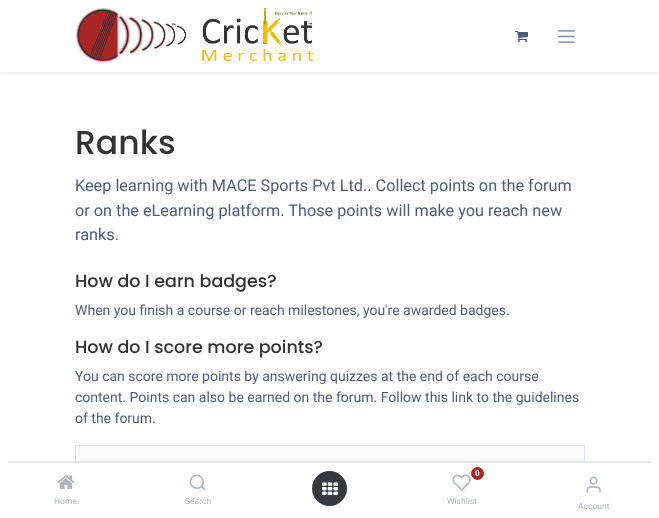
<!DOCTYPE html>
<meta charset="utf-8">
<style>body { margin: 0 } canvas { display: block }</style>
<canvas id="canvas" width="659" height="518"></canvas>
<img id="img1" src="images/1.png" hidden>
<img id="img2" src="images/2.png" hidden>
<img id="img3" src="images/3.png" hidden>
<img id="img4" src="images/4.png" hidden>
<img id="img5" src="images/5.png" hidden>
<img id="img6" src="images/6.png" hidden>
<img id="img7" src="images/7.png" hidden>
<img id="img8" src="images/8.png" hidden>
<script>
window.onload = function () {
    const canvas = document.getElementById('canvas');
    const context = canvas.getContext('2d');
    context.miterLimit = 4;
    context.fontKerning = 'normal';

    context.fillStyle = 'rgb(255, 255, 255)';
    context.fillRect(0, 0, 659, 518);
    context.save();
    context.beginPath();
    context.rect(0, 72, 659, 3);
    context.clip();
    context.fillStyle = 'rgba(0, 0, 0, 0.07)';
    context.filter = 'blur(2px)';
    context.beginPath();
    context.rect(0, 2, 659, 72);
    context.fill();
    context.filter = 'none';
    context.restore();
    context.drawImage(document.getElementById('img1'), 75, 8, 238, 55);
    context.drawImage(document.getElementById('img2'), 515, 31, 13, 11);
    context.drawImage(document.getElementById('img3'), 558, 30, 17, 13);
    context.strokeStyle = 'rgb(222, 226, 230)';
    context.strokeRect(75.5, 445.5, 509, 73);
    context.fillStyle = 'rgb(250, 250, 251)';
    context.fillRect(76, 446, 508, 15);
    context.fillStyle = 'rgb(255, 255, 255)';
    context.beginPath();
    context.moveTo(16, 461);
    context.lineTo(643, 461);
    context.bezierCurveTo(652, 461, 659, 468, 659, 477);
    context.lineTo(659, 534);
    context.lineTo(0, 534);
    context.lineTo(0, 477);
    context.bezierCurveTo(0, 468, 7, 461, 16, 461);
    context.closePath();
    context.fill();
    context.fillStyle = 'rgb(228, 230, 235)';
    context.fillRect(8, 461, 643, 2);
    context.drawImage(document.getElementById('img4'), 57, 475, 18, 14);
    context.drawImage(document.getElementById('img5'), 189, 474, 17, 17);
    context.fillStyle = 'rgb(52, 58, 64)';
    context.beginPath();
    context.arc(329.5, 488.5, 17.5, 0, 2 * Math.PI);
    context.fill();
    context.drawImage(document.getElementById('img6'), 322, 482, 16, 13);
    context.drawImage(document.getElementById('img7'), 452, 474, 19, 17);
    context.fillStyle = 'rgb(168, 39, 38)';
    context.beginPath();
    context.arc(477.5, 473.5, 6, 0, 2 * Math.PI);
    context.fill();
    context.strokeStyle = 'rgb(168, 39, 38)';
    context.stroke();
    context.drawImage(document.getElementById('img8'), 586, 476, 15, 17);
    context.font = '500 33px Poppins';
    context.fillStyle = 'rgb(51, 51, 51)';
    context.fillText('Ranks', 75, 154);
    context.font = '16.25px Roboto';
    context.fillStyle = 'rgb(77, 91, 124)';
    context.fillText('Keep learning with MACE Sports Pvt Ltd.. Collect points on the forum', 75, 191);
    context.fillText('or on the eLearning platform. Those points will make you reach new', 75, 216);
    context.fillText('ranks.', 75, 240);
    context.font = '500 17.5px Poppins';
    context.fillStyle = 'rgb(51, 51, 51)';
    context.fillText('How do I earn badges?', 75, 287);
    context.font = '14px Roboto';
    context.fillStyle = 'rgb(77, 91, 124)';
    context.fillText('When you finish a course or reach milestones, you\'re awarded badges.', 75, 315);
    context.font = '500 17.5px Poppins';
    context.fillStyle = 'rgb(51, 51, 51)';
    context.fillText('How do I score more points?', 75, 353);
    context.font = '14px Roboto';
    context.fillStyle = 'rgb(77, 91, 124)';
    context.fillText('You can score more points by answering quizzes at the end of each course', 75, 381);
    context.fillText('content. Points can also be earned on the forum. Follow this link to the guidelines', 75, 402);
    context.fillText('of the forum.', 75, 423);
    context.font = '8.5px Roboto';
    context.fillStyle = 'rgb(173, 181, 189)';
    context.fillText('Home', 54, 504);
    context.fillText('Search', 185, 504);
    context.font = 'bold 8px Roboto';
    context.fillStyle = 'rgb(255, 255, 255)';
    context.fillText('0', 475, 476);
    context.font = '8.5px Roboto';
    context.fillStyle = 'rgb(173, 181, 189)';
    context.fillText('Wishlist', 447, 504);
    context.fillText('Account', 578, 509);
};
</script>
